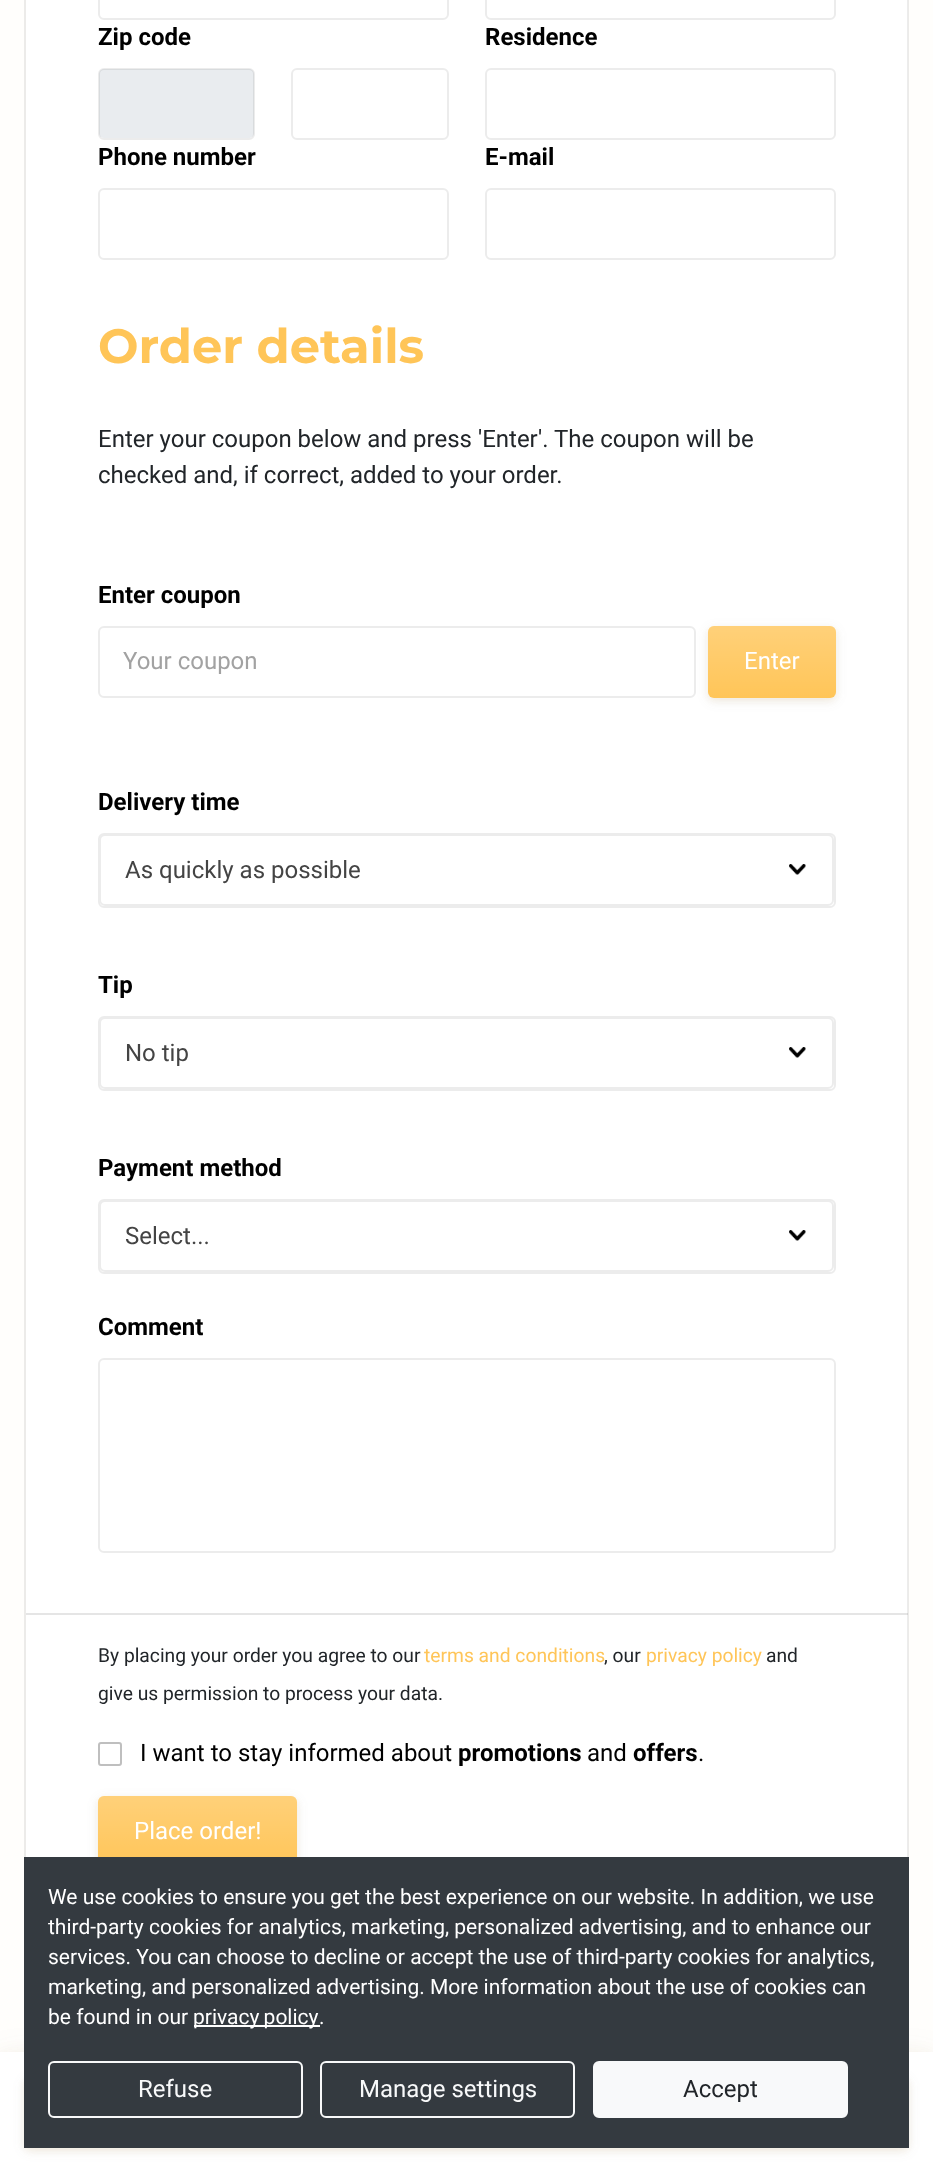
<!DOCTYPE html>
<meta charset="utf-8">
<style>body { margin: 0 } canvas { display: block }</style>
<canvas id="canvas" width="933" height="2171"></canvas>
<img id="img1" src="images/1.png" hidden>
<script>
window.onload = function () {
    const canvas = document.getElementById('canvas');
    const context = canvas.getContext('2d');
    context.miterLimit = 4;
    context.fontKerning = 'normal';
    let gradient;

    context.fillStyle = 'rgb(255, 254, 252)';
    context.fillRect(0, 0, 933, 2171);
    context.fillStyle = 'rgb(255, 255, 255)';
    context.fillRect(26, 0, 882, 1857);
    context.strokeStyle = 'rgba(68, 68, 68, 0.1)';
    context.lineWidth = 2;
    context.strokeRect(25, -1, 883, 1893);
    context.beginPath();
    context.roundRect(99, -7, 349, 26, 5);
    context.strokeStyle = 'rgb(236, 236, 236)';
    context.stroke();
    context.beginPath();
    context.roundRect(486, -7, 349, 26, 5);
    context.stroke();
    context.fillStyle = 'rgb(233, 236, 239)';
    context.beginPath();
    context.roundRect(99, 69, 155, 69, 5);
    context.fill();
    context.beginPath();
    context.roundRect(99, 69, 155, 70, 5);
    context.strokeStyle = 'rgba(68, 68, 68, 0.1)';
    context.stroke();
    context.beginPath();
    context.roundRect(486, 69, 349, 70, 5);
    context.strokeStyle = 'rgb(236, 236, 236)';
    context.stroke();
    context.beginPath();
    context.roundRect(292, 69, 156, 70, 5);
    context.stroke();
    context.beginPath();
    context.roundRect(99, 189, 349, 70, 5);
    context.stroke();
    context.beginPath();
    context.roundRect(486, 189, 349, 70, 5);
    context.stroke();
    context.beginPath();
    context.roundRect(99, 627, 596, 70, 5);
    context.stroke();
    context.fillStyle = 'rgba(255, 197, 88, 0.1)';
    context.filter = 'blur(3px)';
    context.beginPath();
    context.roundRect(708, 629, 128, 72, 6);
    context.fill();
    context.filter = 'none';
    context.fillStyle = 'rgba(68, 68, 68, 0.1)';
    context.filter = 'blur(6px)';
    context.beginPath();
    context.roundRect(708, 629, 128, 72, 6);
    context.fill();
    context.filter = 'none';
    context.fillStyle = 'rgb(255, 197, 88)';
    context.beginPath();
    context.roundRect(708, 626, 128, 72, 6);
    context.fill();
    gradient = context.createLinearGradient(772, 626, 772, 698);
    gradient.addColorStop(0, 'rgba(255, 255, 255, 0.2)');
    gradient.addColorStop(1, 'rgba(255, 255, 255, 0)');
    context.fillStyle = gradient;
    context.beginPath();
    context.roundRect(708, 626, 128, 72, 6);
    context.fill();
    context.beginPath();
    context.roundRect(99, 834, 736, 73, 5);
    context.strokeStyle = 'rgba(68, 68, 68, 0.1)';
    context.stroke();
    context.fillStyle = 'rgb(255, 255, 255)';
    context.beginPath();
    context.roundRect(99, 834, 735, 72, 6);
    context.fill();
    context.beginPath();
    context.roundRect(100, 835, 733, 70, 5);
    context.stroke();
    context.drawImage(document.getElementById('img1'), 789, 864, 17, 11);
    context.beginPath();
    context.roundRect(99, 1017, 736, 73, 5);
    context.stroke();
    context.beginPath();
    context.roundRect(99, 1017, 735, 72, 6);
    context.fill();
    context.beginPath();
    context.roundRect(100, 1018, 733, 70, 5);
    context.stroke();
    context.drawImage(document.getElementById('img1'), 789, 1047, 17, 11);
    context.beginPath();
    context.roundRect(99, 1200, 736, 73, 5);
    context.stroke();
    context.beginPath();
    context.roundRect(99, 1200, 735, 72, 6);
    context.fill();
    context.beginPath();
    context.roundRect(100, 1201, 733, 70, 5);
    context.stroke();
    context.drawImage(document.getElementById('img1'), 789, 1230, 17, 11);
    context.beginPath();
    context.roundRect(99, 1359, 736, 193, 5);
    context.strokeStyle = 'rgb(236, 236, 236)';
    context.stroke();
    context.fillStyle = 'rgba(0, 0, 0, 0.1)';
    context.fillRect(26, 1613, 882, 2);
    context.beginPath();
    context.roundRect(99, 1743, 22, 22, 2);
    context.strokeStyle = 'rgb(191, 191, 191)';
    context.stroke();
    context.fillStyle = 'rgba(255, 197, 88, 0.1)';
    context.filter = 'blur(3px)';
    context.beginPath();
    context.roundRect(98, 1799, 199, 72, 6);
    context.fill();
    context.filter = 'none';
    context.fillStyle = 'rgba(68, 68, 68, 0.1)';
    context.filter = 'blur(6px)';
    context.beginPath();
    context.roundRect(98, 1799, 199, 72, 6);
    context.fill();
    context.filter = 'none';
    context.fillStyle = 'rgb(255, 197, 88)';
    context.beginPath();
    context.roundRect(98, 1796, 199, 72, 6);
    context.fill();
    gradient = context.createLinearGradient(197, 1796, 197, 1868);
    gradient.addColorStop(0, 'rgba(255, 255, 255, 0.2)');
    gradient.addColorStop(1, 'rgba(255, 255, 255, 0)');
    context.fillStyle = gradient;
    context.beginPath();
    context.roundRect(98, 1796, 199, 72, 6);
    context.fill();
    context.fillStyle = 'rgba(255, 197, 88, 0.1)';
    context.filter = 'blur(9px)';
    context.beginPath();
    context.rect(0, 2058, 933, 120);
    context.fill();
    context.filter = 'none';
    context.fillStyle = 'rgba(68, 68, 68, 0.15)';
    context.filter = 'blur(18px)';
    context.beginPath();
    context.rect(0, 2064, 933, 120);
    context.fill();
    context.filter = 'none';
    context.fillStyle = 'rgb(255, 255, 255)';
    context.fillRect(0, 2052, 933, 119);
    context.fillStyle = 'rgba(255, 197, 88, 0.1)';
    context.filter = 'blur(3px)';
    context.beginPath();
    context.roundRect(24, 2079, 885, 72, 6);
    context.fill();
    context.filter = 'none';
    context.fillStyle = 'rgba(68, 68, 68, 0.1)';
    context.filter = 'blur(6px)';
    context.beginPath();
    context.roundRect(24, 2079, 885, 72, 6);
    context.fill();
    context.filter = 'none';
    context.fillStyle = 'rgb(52, 58, 64)';
    context.fillRect(24, 1857, 885, 291);
    context.fillStyle = 'rgb(255, 255, 255)';
    context.fillRect(194, 2025, 126, 2);
    context.beginPath();
    context.roundRect(49, 2062, 253, 55, 5);
    context.strokeStyle = 'rgb(248, 249, 250)';
    context.stroke();
    context.beginPath();
    context.roundRect(321, 2062, 253, 55, 5);
    context.stroke();
    context.fillStyle = 'rgb(248, 249, 250)';
    context.beginPath();
    context.roundRect(594, 2062, 253, 55, 5);
    context.fill();
    context.stroke();
    context.font = 'bold 24px Roboto';
    context.fillStyle = 'rgb(0, 0, 0)';
    context.fillText('Zip code', 98, 45);
    context.fillText('Residence', 485, 45);
    context.fillText('Phone number', 98, 165);
    context.fillText('E-mail', 485, 165);
    context.font = 'bold 48px Montserrat';
    context.fillStyle = 'rgb(255, 197, 88)';
    context.fillText('Order details', 98, 363);
    context.font = '24px Roboto';
    context.fillStyle = 'rgb(33, 37, 41)';
    context.fillText('Enter your coupon below and press \'Enter\'. The coupon will be', 98, 447);
    context.fillText('checked and, if correct, added to your order.', 98, 483);
    context.font = 'bold 24px Roboto';
    context.fillStyle = 'rgb(0, 0, 0)';
    context.fillText('Enter coupon', 98, 603);
    context.font = '24px Roboto';
    context.fillStyle = 'rgb(162, 162, 162)';
    context.fillText('Your coupon', 123, 669);
    context.fillStyle = 'rgb(255, 255, 255)';
    context.fillText('Enter', 744, 669);
    context.font = 'bold 24px Roboto';
    context.fillStyle = 'rgb(0, 0, 0)';
    context.fillText('Delivery time', 98, 810);
    context.font = '24px Roboto';
    context.fillStyle = 'rgb(68, 68, 68)';
    context.fillText('As quickly as possible', 125, 878);
    context.font = 'bold 24px Roboto';
    context.fillStyle = 'rgb(0, 0, 0)';
    context.fillText('Tip', 98, 993);
    context.font = '24px Roboto';
    context.fillStyle = 'rgb(68, 68, 68)';
    context.fillText('No tip', 125, 1061);
    context.font = 'bold 24px Roboto';
    context.fillStyle = 'rgb(0, 0, 0)';
    context.fillText('Payment method', 98, 1176);
    context.font = '24px Roboto';
    context.fillStyle = 'rgb(68, 68, 68)';
    context.fillText('Select...', 125, 1244);
    context.font = 'bold 24px Roboto';
    context.fillStyle = 'rgb(0, 0, 0)';
    context.fillText('Comment', 98, 1335);
    context.font = '19.25px Roboto';
    context.fillStyle = 'rgb(33, 37, 41)';
    context.fillText('By placing your order you agree to our', 98, 1662);
    context.fillStyle = 'rgb(255, 197, 88)';
    context.fillText('terms and conditions', 424, 1662);
    context.fillStyle = 'rgb(33, 37, 41)';
    context.fillText(', our', 604, 1662);
    context.fillStyle = 'rgb(255, 197, 88)';
    context.fillText('privacy policy', 646, 1662);
    context.fillStyle = 'rgb(33, 37, 41)';
    context.fillText('and', 766, 1662);
    context.fillText('give us permission to process your data.', 98, 1700);
    context.font = '24px Roboto';
    context.fillStyle = 'rgb(0, 0, 0)';
    context.fillText('I want to stay informed about', 140, 1761);
    context.font = 'bold 24px Roboto';
    context.fillText('promotions', 458, 1761);
    context.font = '24px Roboto';
    context.fillText('and', 587, 1761);
    context.font = 'bold 24px Roboto';
    context.fillText('offers', 633, 1761);
    context.font = '24px Roboto';
    context.fillText('.', 698, 1761);
    context.fillStyle = 'rgb(255, 255, 255)';
    context.fillText('Place order!', 134, 1839);
    context.font = '21px Roboto';
    context.fillText('We use cookies to ensure you get the best experience on our website. In addition, we use', 48, 1904);
    context.fillText('third-party cookies for analytics, marketing, personalized advertising, and to enhance our', 48, 1934);
    context.fillText('services. You can choose to decline or accept the use of third-party cookies for analytics,', 48, 1964);
    context.fillText('marketing, and personalized advertising. More information about the use of cookies can', 48, 1994);
    context.fillText('be found in our', 48, 2024);
    context.wordSpacing = '-1px';
    context.fillText('privacy policy', 193, 2024);
    context.wordSpacing = '0px';
    context.fillText('.', 319, 2024);
    context.font = '24px Roboto';
    context.fillStyle = 'rgb(248, 249, 250)';
    context.fillText('Refuse', 138, 2097);
    context.fillText('Manage settings', 359, 2097);
    context.fillStyle = 'rgb(33, 37, 41)';
    context.fillText('Accept', 683, 2097);
};
</script>
